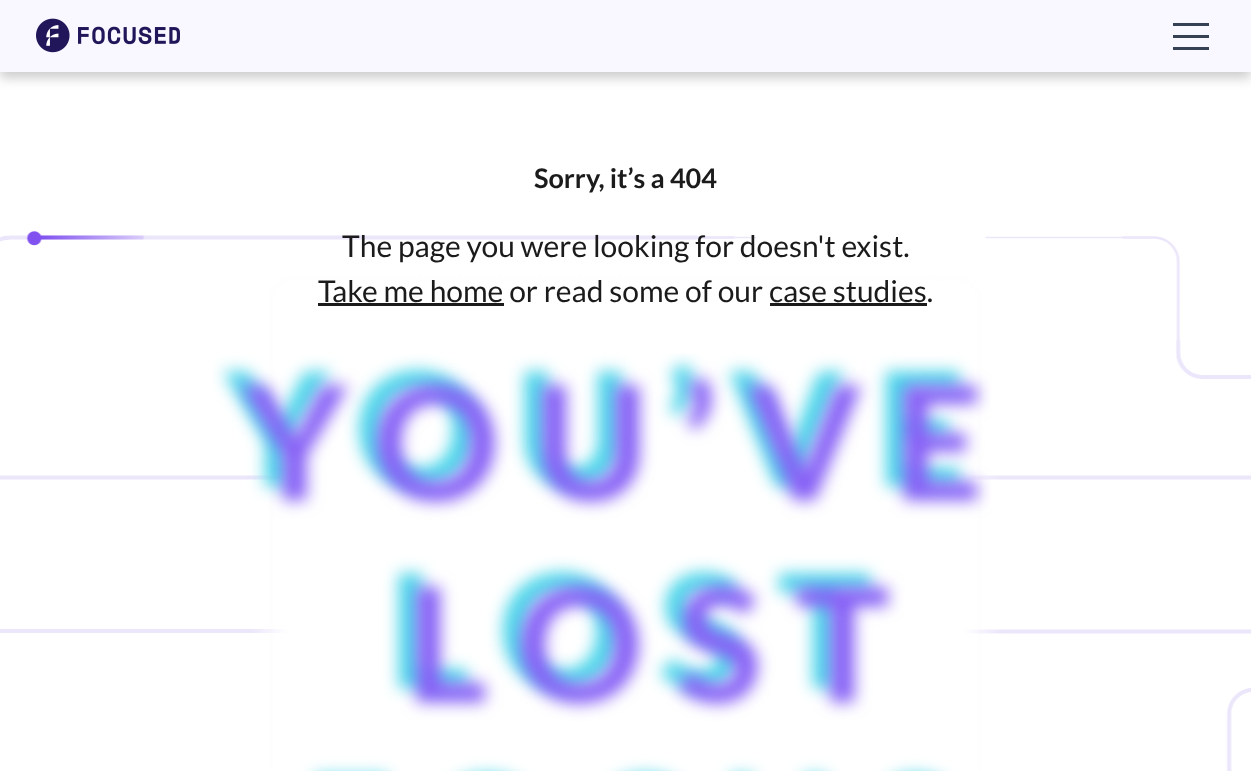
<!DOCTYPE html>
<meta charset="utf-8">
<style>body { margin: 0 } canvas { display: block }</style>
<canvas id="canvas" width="1251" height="771"></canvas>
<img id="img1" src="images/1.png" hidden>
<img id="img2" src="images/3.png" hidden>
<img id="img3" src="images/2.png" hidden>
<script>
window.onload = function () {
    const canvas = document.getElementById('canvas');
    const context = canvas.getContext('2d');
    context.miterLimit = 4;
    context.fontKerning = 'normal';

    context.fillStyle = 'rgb(255, 255, 255)';
    context.fillRect(0, 0, 1251, 771);
    context.fillStyle = 'rgba(0, 0, 0, 0.2)';
    context.filter = 'blur(6px)';
    context.beginPath();
    context.rect(0, 6, 1251, 72);
    context.fill();
    context.filter = 'none';
    context.fillStyle = 'rgb(249, 247, 255)';
    context.fillRect(0, 0, 1251, 72);
    context.drawImage(document.getElementById('img1'), 36, 18, 144, 35);
    context.fillStyle = 'rgb(54, 65, 83)';
    context.fillRect(1173, 23, 36, 3);
    context.fillRect(1173, 35, 36, 3);
    context.fillRect(1173, 47, 36, 3);
    context.drawImage(document.getElementById('img2'), 0, 231, 1251, 540);
    context.fillStyle = 'rgb(27, 27, 27)';
    context.fillRect(318, 303, 186, 3);
    context.fillRect(770, 303, 157, 3);
    context.drawImage(document.getElementById('img3'), 213, 353, 778, 418);
    context.font = 'bold 27px Lato';
    context.fillText('Sorry, it’s a 404', 534, 188);
    context.font = '30px Lato';
    context.fillText('The page you were looking for doesn\'t exist.', 342, 257);
    context.fillText('Take me home or read some of our case studies.', 318, 302);
};
</script>
